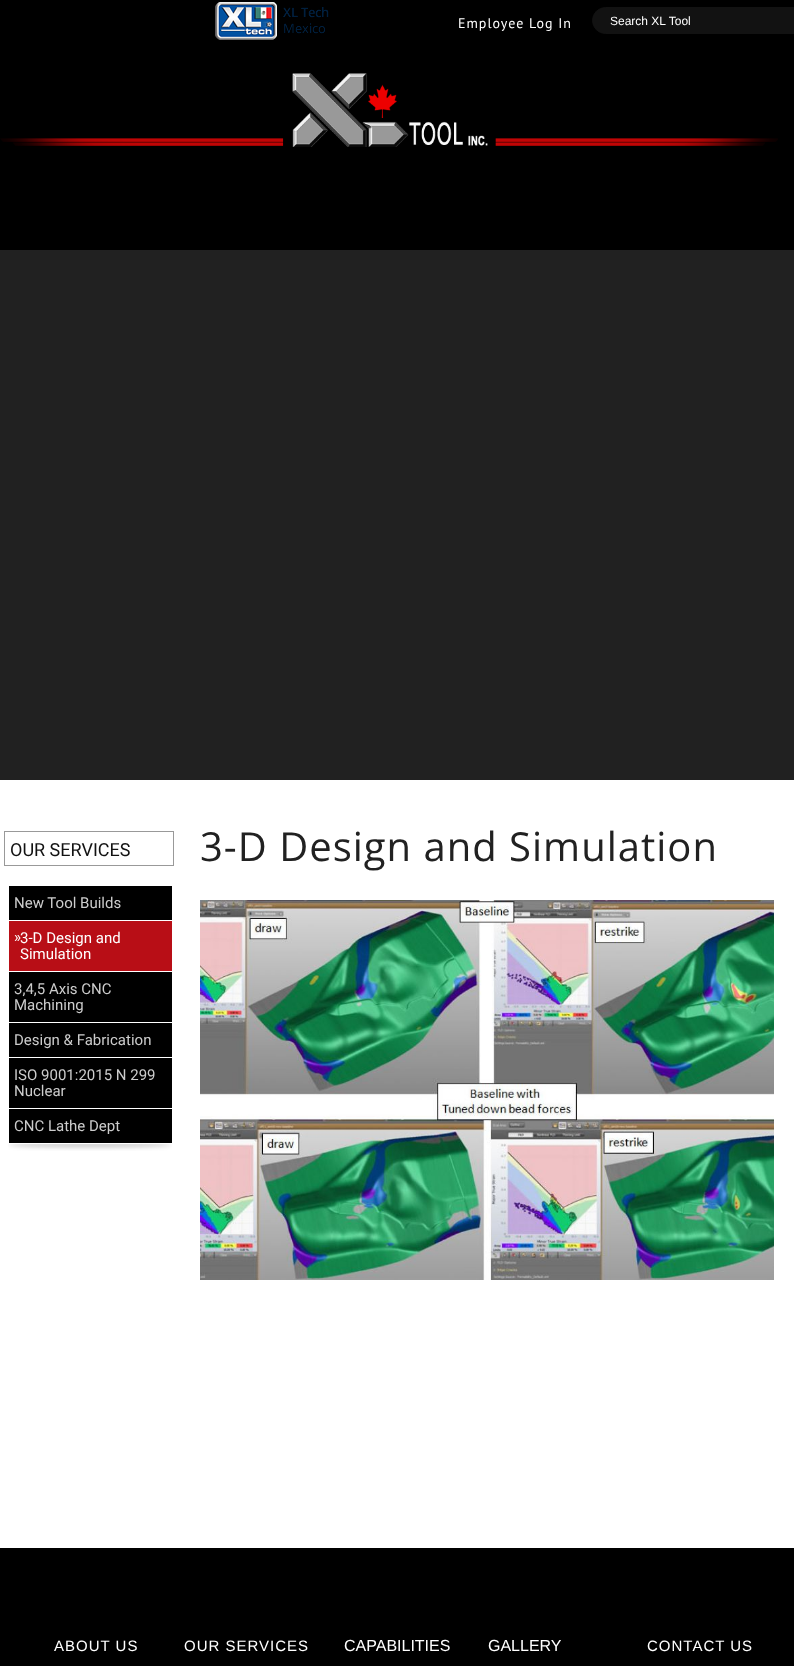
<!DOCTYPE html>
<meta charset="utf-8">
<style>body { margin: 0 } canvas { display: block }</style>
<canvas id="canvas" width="794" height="1666"></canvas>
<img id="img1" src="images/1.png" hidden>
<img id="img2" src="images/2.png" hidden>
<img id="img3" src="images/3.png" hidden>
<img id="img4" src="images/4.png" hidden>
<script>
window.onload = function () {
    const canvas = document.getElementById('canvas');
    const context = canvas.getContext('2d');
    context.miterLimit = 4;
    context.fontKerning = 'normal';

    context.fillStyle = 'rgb(255, 255, 255)';
    context.fillRect(0, 0, 794, 1666);
    context.fillStyle = 'rgb(0, 0, 0)';
    context.fillRect(0, 0, 794, 250);
    context.drawImage(document.getElementById('img1'), 215, 2, 114, 38);
    context.fillStyle = 'rgb(18, 18, 18)';
    context.beginPath();
    context.roundRect(592.5, 7.5, 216, 26, 13);
    context.fill();
    context.strokeStyle = 'rgb(18, 18, 18)';
    context.stroke();
    context.drawImage(document.getElementById('img2'), 0, 73, 778, 74);
    context.fillStyle = 'rgb(33, 33, 33)';
    context.fillRect(0, 250, 794, 530);
    context.strokeStyle = 'rgb(153, 153, 153)';
    context.strokeRect(4.5, 831.5, 169, 34);
    context.fillStyle = 'rgb(0, 0, 0)';
    context.fillRect(9, 886, 163, 34);
    context.fillStyle = 'rgb(184, 14, 22)';
    context.fillRect(9, 921, 163, 50);
    context.fillStyle = 'rgb(0, 0, 0)';
    context.fillRect(9, 972, 163, 50);
    context.fillRect(9, 1023, 163, 34);
    context.fillRect(9, 1058, 163, 50);
    context.fillRect(9, 1109, 163, 34);
    context.drawImage(document.getElementById('img3'), 8, 1144, 164, 7);
    context.drawImage(document.getElementById('img4'), 200, 900, 574, 380);
    context.fillRect(0, 1548, 794, 118);
    context.letterSpacing = '1px';
    context.font = '14px PT Sans';
    context.fillStyle = 'rgb(255, 255, 255)';
    context.fillText('Employee Log In', 458, 28);
    context.letterSpacing = '0px';
    context.font = '12px Liberation Sans';
    context.fillText('Search XL Tool', 610, 25);
    context.font = '18px Roboto';
    context.fillStyle = 'rgb(18, 18, 18)';
    context.fillText('OUR SERVICES', 10, 856);
    context.font = '15px Roboto';
    context.fillStyle = 'rgb(204, 204, 204)';
    context.fillText('New Tool Builds', 14, 908);
    context.fillStyle = 'rgb(255, 255, 255)';
    context.fillText('»', 14, 942);
    context.fillText('3-D Design and', 20, 943);
    context.fillText('Simulation', 20, 959);
    context.fillStyle = 'rgb(204, 204, 204)';
    context.fillText('3,4,5 Axis CNC', 14, 994);
    context.fillText('Machining', 14, 1010);
    context.fillText('Design & Fabrication', 14, 1045);
    context.fillText('ISO 9001:2015 N 299', 14, 1080);
    context.fillText('Nuclear', 14, 1096);
    context.fillText('CNC Lathe Dept', 14, 1131);
    context.letterSpacing = '1px';
    context.font = '40px Open Sans';
    context.fillStyle = 'rgb(33, 33, 33)';
    context.fillText('3-D Design and Simulation', 200, 861);
    context.font = '15px Liberation Sans';
    context.fillStyle = 'rgb(255, 255, 255)';
    context.fillText('ABOUT US', 54, 1651);
    context.fillText('OUR SERVICES', 184, 1651);
    context.letterSpacing = '0px';
    context.font = '16px Liberation Sans';
    context.fillText('CAPABILITIES', 344, 1651);
    context.fillText('GALLERY', 488, 1651);
    context.letterSpacing = '1px';
    context.font = '15px Liberation Sans';
    context.fillText('CONTACT US', 647, 1651);
};
</script>
